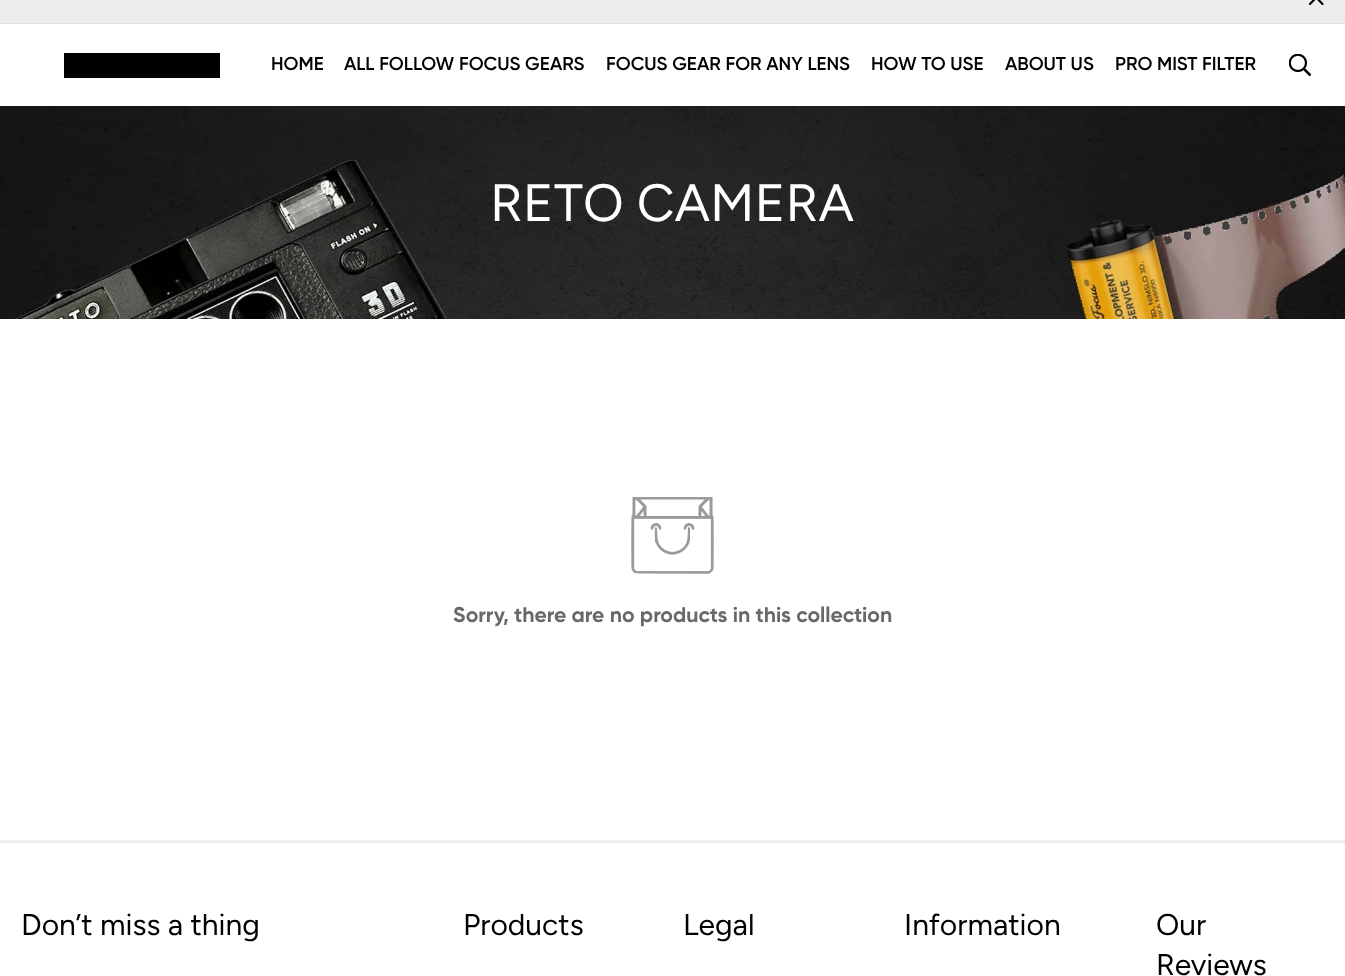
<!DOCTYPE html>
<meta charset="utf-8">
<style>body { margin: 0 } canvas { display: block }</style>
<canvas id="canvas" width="1345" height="976"></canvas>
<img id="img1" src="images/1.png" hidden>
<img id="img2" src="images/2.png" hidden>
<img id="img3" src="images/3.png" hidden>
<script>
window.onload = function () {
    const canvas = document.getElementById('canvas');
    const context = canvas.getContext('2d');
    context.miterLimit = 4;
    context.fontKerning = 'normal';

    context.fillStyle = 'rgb(255, 255, 255)';
    context.fillRect(0, 0, 1345, 976);
    context.fillStyle = 'rgb(237, 237, 237)';
    context.fillRect(0, 0, 1345, 23);
    context.fillStyle = 'rgb(222, 222, 222)';
    context.fillRect(0, 23, 1345, 1);
    context.beginPath();
    context.moveTo(1310, 4);
    context.lineTo(1322.5, -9);
    context.moveTo(1310, -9);
    context.lineTo(1322.5, 4);
    context.strokeStyle = 'rgb(0, 0, 0)';
    context.lineWidth = 2.1;
    context.lineCap = 'round';
    context.lineJoin = 'round';
    context.stroke();
    context.fillStyle = 'rgb(0, 0, 0)';
    context.fillRect(64, 53, 156, 25);
    context.drawImage(document.getElementById('img1'), 1289, 54, 22, 22);
    context.drawImage(document.getElementById('img2'), 0, 106, 1345, 213);
    context.drawImage(document.getElementById('img3'), 631, 497, 83, 77);
    context.fillStyle = 'rgb(238, 238, 238)';
    context.fillRect(0, 840, 1345, 3);
    context.font = '600 18.75px Gilroy';
    context.fillStyle = 'rgb(0, 0, 0)';
    context.fillText('HOME', 271, 70);
    context.fillText('ALL FOLLOW FOCUS GEARS', 344, 70);
    context.fillText('FOCUS GEAR FOR ANY LENS', 606, 70);
    context.fillText('HOW TO USE', 871, 70);
    context.fillText('ABOUT US', 1005, 70);
    context.fillText('PRO MIST FILTER', 1115, 70);
    context.font = '52.5px Figtree';
    context.fillStyle = 'rgb(255, 255, 255)';
    context.fillText('RETO CAMERA', 490, 221);
    context.font = 'bold 21.25px Gilroy';
    context.fillStyle = 'rgb(105, 105, 105)';
    context.fillText('Sorry, there are no products in this collection', 453, 622);
    context.font = '30px Figtree';
    context.fillStyle = 'rgb(0, 0, 0)';
    context.fillText('Don’t miss a thing', 21, 935);
    context.fillText('Products', 463, 935);
    context.fillText('Legal', 683, 935);
    context.fillText('Information', 904, 935);
    context.fillText('Our', 1156, 935);
    context.fillText('Reviews', 1156, 975);
};
</script>
